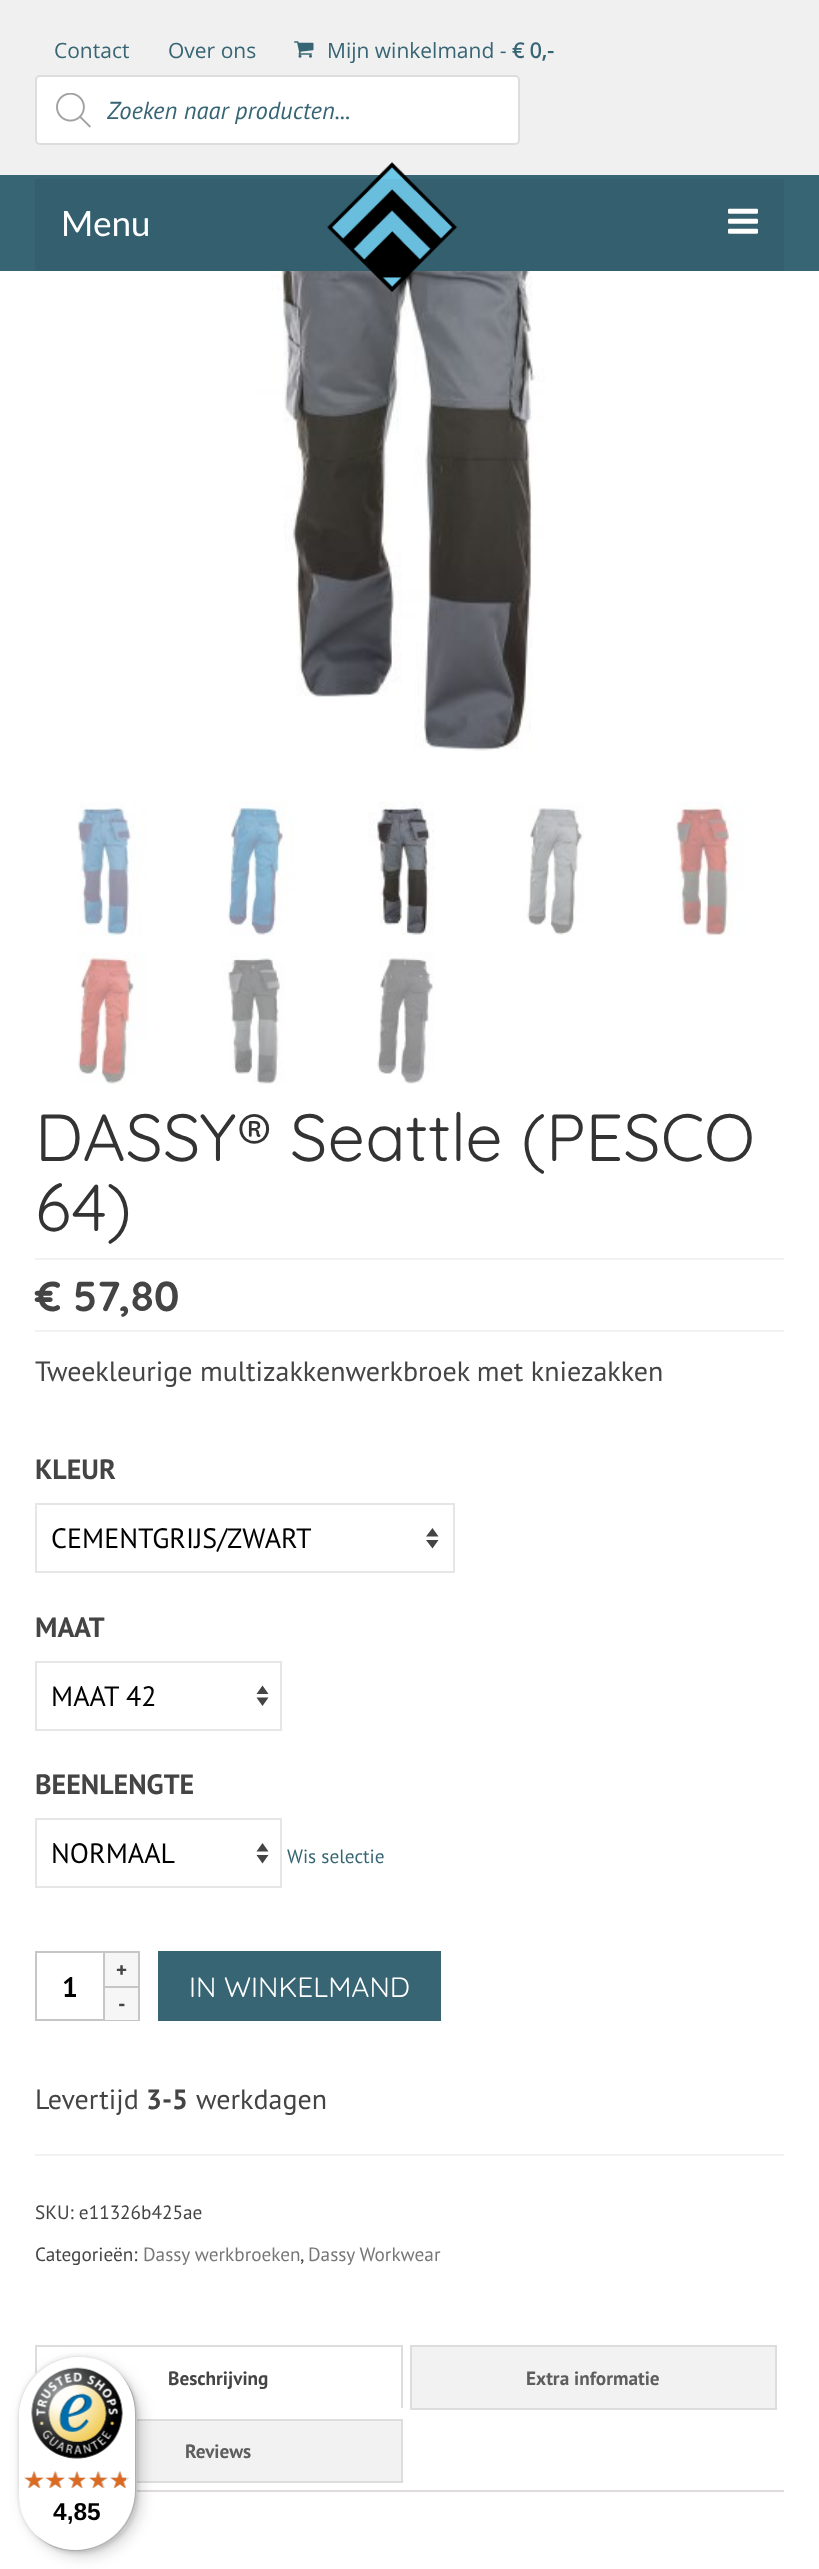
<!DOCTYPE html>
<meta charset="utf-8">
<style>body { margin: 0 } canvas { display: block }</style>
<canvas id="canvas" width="819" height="2569"></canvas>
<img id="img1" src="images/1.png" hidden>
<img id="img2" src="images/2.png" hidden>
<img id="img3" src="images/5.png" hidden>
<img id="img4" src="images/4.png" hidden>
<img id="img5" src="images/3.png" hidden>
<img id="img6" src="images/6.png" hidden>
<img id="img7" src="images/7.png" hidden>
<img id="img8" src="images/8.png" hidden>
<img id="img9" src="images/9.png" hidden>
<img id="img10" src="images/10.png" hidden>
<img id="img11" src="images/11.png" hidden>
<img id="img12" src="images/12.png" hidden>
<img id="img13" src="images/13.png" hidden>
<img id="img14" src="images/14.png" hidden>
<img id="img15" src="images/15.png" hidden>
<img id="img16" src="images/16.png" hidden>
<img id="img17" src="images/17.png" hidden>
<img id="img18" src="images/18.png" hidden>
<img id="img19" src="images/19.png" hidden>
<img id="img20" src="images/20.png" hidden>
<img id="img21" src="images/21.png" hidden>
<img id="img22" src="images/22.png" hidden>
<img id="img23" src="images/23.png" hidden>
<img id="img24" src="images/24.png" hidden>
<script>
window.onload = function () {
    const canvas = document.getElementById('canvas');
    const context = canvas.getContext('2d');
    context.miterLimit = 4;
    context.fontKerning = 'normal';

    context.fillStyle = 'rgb(255, 255, 255)';
    context.fillRect(0, 0, 819, 2569);
    context.fillStyle = 'rgb(55, 101, 116)';
    context.fillRect(0, 175, 819, 96);
    context.fillStyle = 'rgb(240, 240, 240)';
    context.fillRect(0, 0, 819, 175);
    context.drawImage(document.getElementById('img1'), 294, 41, 20, 17);
    context.fillStyle = 'rgb(255, 255, 255)';
    context.beginPath();
    context.roundRect(36, 76, 483, 68, 4);
    context.fill();
    context.strokeStyle = 'rgb(221, 221, 221)';
    context.lineWidth = 2;
    context.stroke();
    context.drawImage(document.getElementById('img2'), 56, 93, 35, 35);
    context.drawImage(document.getElementById('img3'), 258, 271, 287, 480);
    context.drawImage(document.getElementById('img4'), 327, 162, 131, 130);
    context.fillStyle = 'rgba(0, 0, 0, 0.05)';
    context.fillRect(35, 179, 749, 92);
    context.drawImage(document.getElementById('img5'), 728, 208, 30, 26);
    context.drawImage(document.getElementById('img6'), 77, 802, 70, 135);
    context.drawImage(document.getElementById('img7'), 227, 801, 68, 135);
    context.drawImage(document.getElementById('img8'), 368, 801, 66, 134);
    context.drawImage(document.getElementById('img9'), 521, 804, 63, 131);
    context.drawImage(document.getElementById('img10'), 673, 801, 72, 135);
    context.drawImage(document.getElementById('img11'), 77, 952, 70, 133);
    context.drawImage(document.getElementById('img12'), 223, 952, 62, 132);
    context.drawImage(document.getElementById('img13'), 377, 952, 58, 132);
    context.fillStyle = 'rgb(242, 242, 242)';
    context.fillRect(35, 1258, 749, 2);
    context.fillRect(35, 1330, 749, 2);
    context.fillStyle = 'rgb(68, 68, 68)';
    context.beginPath();
    context.moveTo(426, 1536.5);
    context.lineTo(432.5, 1528);
    context.lineTo(438.5, 1536.5);
    context.closePath();
    context.moveTo(438.5, 1540);
    context.lineTo(432.5, 1548.5);
    context.lineTo(426, 1540);
    context.closePath();
    context.fill();
    context.strokeStyle = 'rgb(230, 230, 230)';
    context.strokeRect(36, 1504, 418, 68);
    context.beginPath();
    context.moveTo(256.5, 1694);
    context.lineTo(262.5, 1685.5);
    context.lineTo(268.5, 1694);
    context.closePath();
    context.moveTo(268.5, 1697.5);
    context.lineTo(262.5, 1706);
    context.lineTo(256.5, 1697.5);
    context.closePath();
    context.fill();
    context.strokeRect(36, 1662, 245, 68);
    context.beginPath();
    context.moveTo(256.5, 1851.5);
    context.lineTo(262.5, 1843);
    context.lineTo(268.5, 1851.5);
    context.closePath();
    context.moveTo(268.5, 1855);
    context.lineTo(262.5, 1863.5);
    context.lineTo(256.5, 1855);
    context.closePath();
    context.fill();
    context.strokeRect(36, 1819, 245, 68);
    context.fillStyle = 'rgb(247, 246, 247)';
    context.fillRect(105, 1953, 33, 33);
    context.fillStyle = 'rgb(198, 198, 198)';
    context.fillRect(105, 1951, 35, 2);
    context.fillRect(138, 1951, 2, 35);
    context.strokeStyle = 'rgb(198, 198, 198)';
    context.strokeRect(36, 1952, 68, 68);
    context.fillStyle = 'rgb(247, 246, 247)';
    context.fillRect(105, 1988, 33, 32);
    context.fillStyle = 'rgb(198, 198, 198)';
    context.fillRect(105, 1986, 35, 2);
    context.fillRect(138, 1986, 2, 35);
    context.fillRect(105, 2020, 35, 1);
    context.fillStyle = 'rgb(55, 101, 116)';
    context.fillRect(158, 1951, 283, 70);
    context.fillStyle = 'rgb(242, 242, 242)';
    context.fillRect(35, 2154, 749, 2);
    context.fillStyle = 'rgb(221, 221, 221)';
    context.fillRect(35, 2345, 368, 2);
    context.fillRect(401, 2345, 2, 65);
    context.fillStyle = 'rgb(255, 255, 255)';
    context.fillRect(401, 2408, 2, 2);
    context.fillStyle = 'rgb(221, 221, 221)';
    context.fillRect(35, 2345, 2, 29);
    context.fillStyle = 'rgb(242, 242, 242)';
    context.beginPath();
    context.rect(411, 2346, 365, 63);
    context.fill();
    context.strokeStyle = 'rgb(221, 221, 221)';
    context.stroke();
    context.fillRect(137, 2421, 264, 60);
    context.strokeRect(36, 2420, 366, 62);
    context.fillStyle = 'rgb(223, 219, 223)';
    context.fillRect(137, 2490, 647, 2);
    context.fillStyle = 'rgba(0, 0, 0, 0.15)';
    context.filter = 'blur(7px)';
    context.beginPath();
    context.roundRect(23, 2361, 119, 196, 59.5);
    context.fill();
    context.filter = 'none';
    context.filter = 'blur(2px)';
    context.beginPath();
    context.roundRect(19, 2357, 119, 196, 59.5);
    context.fill();
    context.filter = 'none';
    context.fillStyle = 'rgb(255, 255, 255)';
    context.beginPath();
    context.roundRect(18, 2356, 119, 196, 59.5);
    context.fill();
    context.fillStyle = 'rgb(229, 229, 229)';
    context.beginPath();
    context.moveTo(79, 2357);
    context.bezierCurveTo(94, 2357, 107, 2362, 117, 2371);
    context.bezierCurveTo(106, 2362, 93, 2356, 78, 2356);
    context.bezierCurveTo(45, 2356, 18, 2383, 18, 2416);
    context.lineTo(18, 2492);
    context.bezierCurveTo(18, 2508, 24, 2521, 33, 2532);
    context.bezierCurveTo(24, 2522, 19, 2509, 19, 2494);
    context.lineTo(19, 2417);
    context.bezierCurveTo(19, 2384, 46, 2357, 79, 2357);
    context.closePath();
    context.fill();
    context.fillStyle = 'rgba(0, 0, 0, 0.2)';
    context.beginPath();
    context.moveTo(36, 2535);
    context.bezierCurveTo(47, 2546, 61, 2552, 78, 2552);
    context.bezierCurveTo(110, 2552, 137, 2525, 137, 2492);
    context.lineTo(137, 2416);
    context.bezierCurveTo(137, 2399, 131, 2385, 120, 2374);
    context.bezierCurveTo(129, 2384, 135, 2398, 135, 2413);
    context.lineTo(135, 2490);
    context.bezierCurveTo(135, 2523, 108, 2550, 75, 2550);
    context.bezierCurveTo(60, 2550, 46, 2544, 36, 2535);
    context.closePath();
    context.fill();
    context.fillStyle = 'rgba(50, 50, 50, 0.2)';
    context.beginPath();
    context.moveTo(35, 2534);
    context.bezierCurveTo(46, 2545, 61, 2552, 78, 2552);
    context.bezierCurveTo(110, 2552, 137, 2525, 137, 2492);
    context.lineTo(137, 2416);
    context.bezierCurveTo(137, 2399, 130, 2384, 119, 2373);
    context.bezierCurveTo(129, 2384, 135, 2398, 135, 2414);
    context.lineTo(135, 2491);
    context.bezierCurveTo(135, 2524, 109, 2550, 76, 2550);
    context.bezierCurveTo(60, 2550, 46, 2544, 35, 2534);
    context.closePath();
    context.fill();
    context.fillStyle = 'rgba(255, 255, 255, 0.3)';
    context.beginPath();
    context.moveTo(38, 2537);
    context.bezierCurveTo(49, 2546, 62, 2552, 78, 2552);
    context.bezierCurveTo(110, 2552, 137, 2525, 137, 2492);
    context.lineTo(137, 2416);
    context.bezierCurveTo(137, 2400, 131, 2387, 122, 2376);
    context.bezierCurveTo(131, 2386, 136, 2399, 136, 2414);
    context.lineTo(136, 2491);
    context.bezierCurveTo(136, 2524, 109, 2551, 76, 2551);
    context.bezierCurveTo(61, 2551, 48, 2546, 38, 2537);
    context.closePath();
    context.fill();
    context.drawImage(document.getElementById('img14'), 31, 2367, 92, 92);
    context.drawImage(document.getElementById('img15'), 24, 2471, 20, 17);
    context.drawImage(document.getElementById('img16'), 47, 2471, 18, 17);
    context.drawImage(document.getElementById('img17'), 68, 2471, 18, 17);
    context.drawImage(document.getElementById('img18'), 89, 2471, 20, 17);
    context.drawImage(document.getElementById('img19'), 110, 2471, 20, 17);
    context.drawImage(document.getElementById('img20'), 24, 2471, 20, 17);
    context.drawImage(document.getElementById('img21'), 45, 2471, 20, 17);
    context.drawImage(document.getElementById('img22'), 68, 2471, 18, 17);
    context.drawImage(document.getElementById('img23'), 89, 2471, 18, 17);
    context.drawImage(document.getElementById('img24'), 110, 2471, 16, 17);
    context.font = '21px Open Sans';
    context.fillStyle = 'rgb(55, 101, 116)';
    context.fillText('Contact', 54, 58);
    context.fillText('Over ons', 168, 58);
    context.fillText('Mijn winkelmand -', 327, 58);
    context.font = 'bold 21px Open Sans';
    context.fillText('€ 0,-', 512, 58);
    context.font = 'italic 24.5px PT Sans';
    context.fillText('Zoeken naar producten...', 107, 119);
    context.font = '35px Lato';
    context.fillStyle = 'rgb(255, 255, 255)';
    context.fillText('Menu', 61, 236);
    context.font = '66.5px Quicksand';
    context.fillStyle = 'rgb(51, 51, 51)';
    context.fillText('DASSY® Seattle (PESCO', 35, 1161);
    context.fillText('64)', 35, 1231);
    context.font = 'bold 42px Quicksand';
    context.fillStyle = 'rgb(68, 68, 68)';
    context.fillText('€ 57,80', 35, 1311);
    context.font = '28px PT Sans';
    context.fillText('Tweekleurige multizakkenwerkbroek met kniezakken', 35, 1381);
    context.font = 'bold 28px PT Sans';
    context.fillText('KLEUR', 35, 1479);
    context.font = '28px PT Sans';
    context.fillStyle = 'rgb(0, 0, 0)';
    context.fillText('CEMENTGRIJS/ZWART', 51, 1548);
    context.font = 'bold 28px PT Sans';
    context.fillStyle = 'rgb(68, 68, 68)';
    context.fillText('MAAT', 35, 1637);
    context.font = '28px PT Sans';
    context.fillStyle = 'rgb(0, 0, 0)';
    context.fillText('MAAT 42', 51, 1706);
    context.font = 'bold 28px PT Sans';
    context.fillStyle = 'rgb(68, 68, 68)';
    context.fillText('BEENLENGTE', 35, 1794);
    context.font = '28px PT Sans';
    context.fillStyle = 'rgb(0, 0, 0)';
    context.fillText('NORMAAL', 51, 1863);
    context.font = '19.25px PT Sans';
    context.fillStyle = 'rgb(55, 101, 116)';
    context.fillText('Wis selectie', 287, 1863);
    context.font = 'bold 21px PT Sans';
    context.fillStyle = 'rgb(68, 68, 68)';
    context.fillText('+', 116, 1977);
    context.font = 'bold 28px PT Sans';
    context.fillStyle = 'rgb(0, 0, 0)';
    context.fillText('1', 62, 1997);
    context.font = 'bold 21px PT Sans';
    context.fillStyle = 'rgb(68, 68, 68)';
    context.fillText('-', 118, 2011);
    context.font = '28px Quicksand';
    context.fillStyle = 'rgb(255, 255, 255)';
    context.fillText('IN WINKELMAND', 189, 1997);
    context.font = '28px PT Sans';
    context.fillStyle = 'rgb(68, 68, 68)';
    context.fillText('Levertijd', 35, 2109);
    context.font = 'bold 28px PT Sans';
    context.fillText('3-5', 146, 2109);
    context.font = '28px PT Sans';
    context.fillText('werkdagen', 196, 2109);
    context.font = '19.25px PT Sans';
    context.fillText('SKU: e11326b425ae', 35, 2219);
    context.fillText('Categorieën:', 35, 2261);
    context.fillStyle = 'rgb(119, 119, 119)';
    context.fillText('Dassy werkbroeken', 143, 2261);
    context.fillStyle = 'rgb(68, 68, 68)';
    context.fillText(',', 300, 2261);
    context.fillStyle = 'rgb(119, 119, 119)';
    context.fillText('Dassy Workwear', 308, 2261);
    context.font = 'bold 19.25px PT Sans';
    context.fillStyle = 'rgb(68, 68, 68)';
    context.fillText('Beschrijving', 168, 2385);
    context.fillStyle = 'rgb(94, 94, 94)';
    context.fillText('Extra informatie', 526, 2385);
    context.fillText('Reviews', 185, 2458);
    context.font = 'bold 24.5px Liberation Sans';
    context.fillStyle = 'rgb(0, 0, 0)';
    context.fillText('4,85', 53, 2520);
};
</script>
